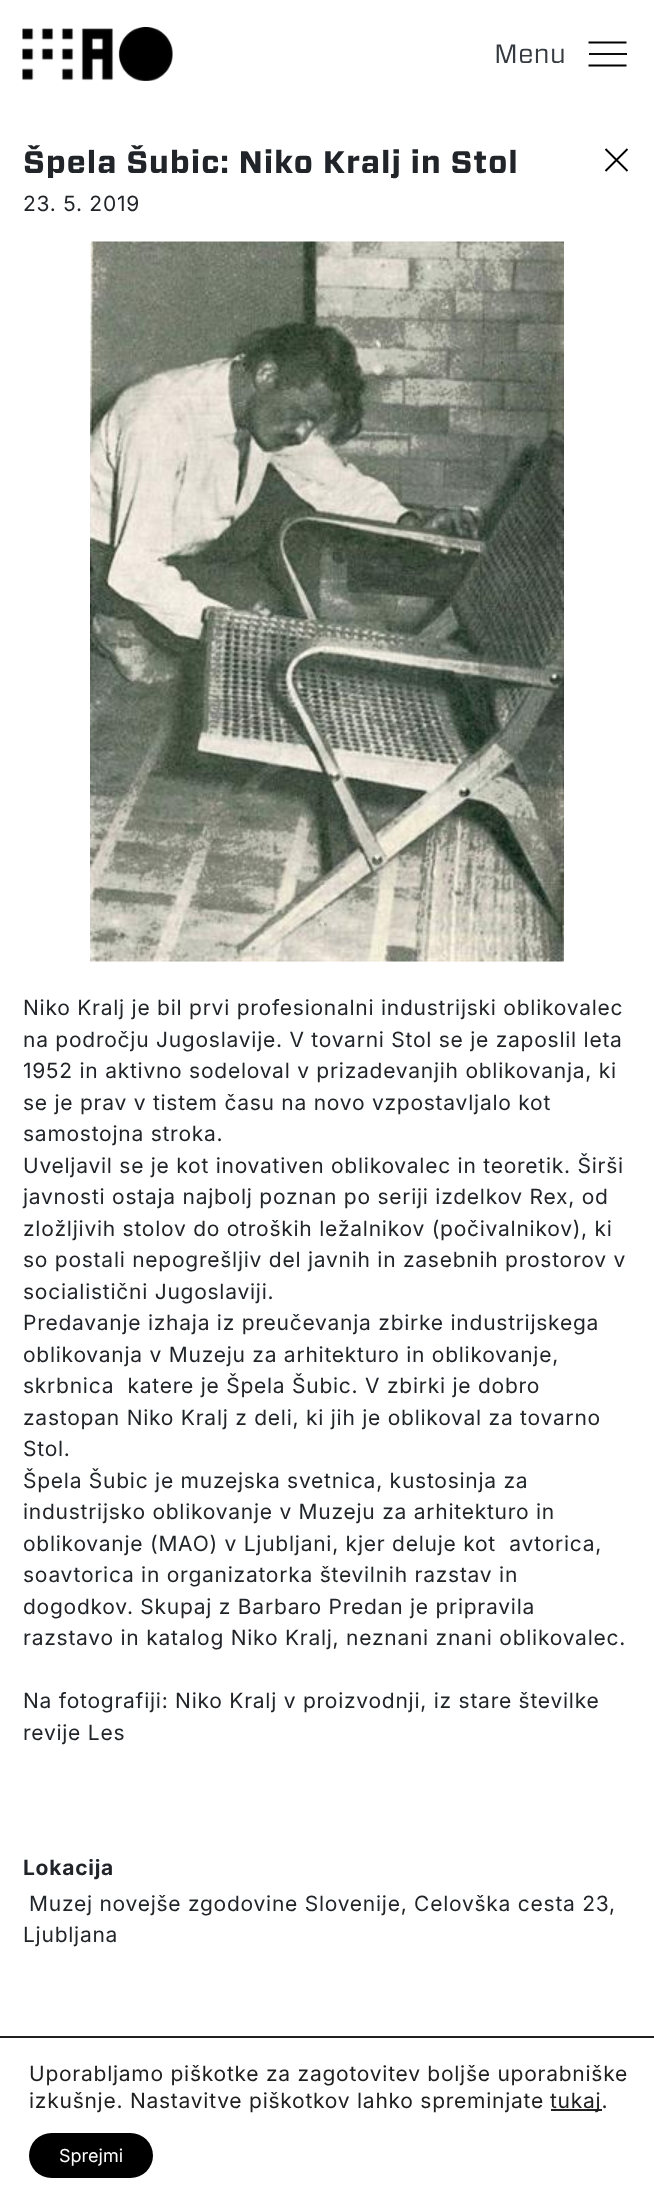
<!DOCTYPE html>
<meta charset="utf-8">
<style>body { margin: 0 } canvas { display: block }</style>
<canvas id="canvas" width="654" height="2204"></canvas>
<img id="img1" src="images/1.png" hidden>
<img id="img2" src="images/2.png" hidden>
<script>
window.onload = function () {
    const canvas = document.getElementById('canvas');
    const context = canvas.getContext('2d');
    context.miterLimit = 4;
    context.fontKerning = 'normal';

    context.fillStyle = 'rgb(255, 255, 255)';
    context.fillRect(0, 0, 654, 2204);
    context.drawImage(document.getElementById('img1'), 22, 27, 151, 54);
    context.fillStyle = 'rgb(13, 13, 13)';
    context.fillRect(589, 53, 38, 2);
    context.beginPath();
    context.moveTo(588.5, 42.5);
    context.lineTo(626.5, 42.5);
    context.moveTo(588.5, 65.5);
    context.lineTo(626.5, 65.5);
    context.strokeStyle = 'rgb(0, 0, 0)';
    context.lineWidth = 1.9;
    context.lineJoin = 'round';
    context.stroke();
    context.beginPath();
    context.moveTo(605.5, 171);
    context.lineTo(627.5, 149);
    context.moveTo(627.5, 171);
    context.lineTo(605.5, 149);
    context.stroke();
    context.drawImage(document.getElementById('img2'), 90, 241, 474, 721);
    context.fillStyle = 'rgb(32, 32, 32)';
    context.fillRect(0, 2036, 654, 2);
    context.fillRect(551, 2109, 51, 2);
    context.fillStyle = 'rgb(0, 0, 0)';
    context.beginPath();
    context.roundRect(29, 2133, 124, 45, 22.5);
    context.fill();
    context.font = '300 26.5px "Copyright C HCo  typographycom"';
    context.fillStyle = 'rgb(52, 58, 64)';
    context.fillText('Menu', 494, 63);
    context.letterSpacing = '0.75px';
    context.font = '31.25px "Copyright C HCo  typographycom"';
    context.fillStyle = 'rgb(33, 37, 41)';
    context.fillText('Špela Šubic: Niko Kralj in Stol', 23, 173);
    context.font = '21px Inter';
    context.fillText('23. 5. 2019', 23, 211);
    context.fillText('Niko Kralj je bil prvi profesionalni industrijski oblikovalec', 23, 1015);
    context.fillText('na področju Jugoslavije. V tovarni Stol se je zaposlil leta', 23, 1047);
    context.fillText('1952 in aktivno sodeloval v prizadevanjih oblikovanja, ki', 23, 1078);
    context.fillText('se je prav v tistem času na novo vzpostavljalo kot', 23, 1110);
    context.fillText('samostojna stroka.', 23, 1141);
    context.fillText('Uveljavil se je kot inovativen oblikovalec in teoretik. Širši', 23, 1173);
    context.fillText('javnosti ostaja najbolj poznan po seriji izdelkov Rex, od', 23, 1204);
    context.fillText('zložljivih stolov do otroških ležalnikov (počivalnikov), ki', 23, 1236);
    context.fillText('so postali nepogrešljiv del javnih in zasebnih prostorov v', 23, 1267);
    context.fillText('socialistični Jugoslaviji.', 23, 1299);
    context.fillText('Predavanje izhaja iz preučevanja zbirke industrijskega', 23, 1330);
    context.fillText('oblikovanja v Muzeju za arhitekturo in oblikovanje,', 23, 1362);
    context.fillText('skrbnica  katere je Špela Šubic. V zbirki je dobro', 23, 1393);
    context.fillText('zastopan Niko Kralj z deli, ki jih je oblikoval za tovarno', 23, 1425);
    context.fillText('Stol.', 23, 1456);
    context.fillText('Špela Šubic je muzejska svetnica, kustosinja za', 23, 1488);
    context.fillText('industrijsko oblikovanje v Muzeju za arhitekturo in', 23, 1519);
    context.fillText('oblikovanje (MAO) v Ljubljani, kjer deluje kot  avtorica,', 23, 1551);
    context.fillText('soavtorica in organizatorka številnih razstav in', 23, 1582);
    context.fillText('dogodkov. Skupaj z Barbaro Predan je pripravila', 23, 1614);
    context.fillText('razstavo in katalog Niko Kralj, neznani znani oblikovalec.', 23, 1645);
    context.fillText('Na fotografiji: Niko Kralj v proizvodnji, iz stare številke', 23, 1708);
    context.fillText('revije Les', 23, 1740);
    context.font = 'bold 21px Inter';
    context.fillText('Lokacija', 23, 1875);
    context.font = '21px Inter';
    context.fillText('Muzej novejše zgodovine Slovenije, Celovška cesta 23,', 29, 1911);
    context.fillText('Ljubljana', 23, 1942);
    context.fillStyle = 'rgb(32, 32, 32)';
    context.fillText('Uporabljamo piškotke za zagotovitev boljše uporabniške', 29, 2081);
    context.fillText('izkušnje. Nastavitve piškotkov lahko spreminjate', 29, 2108);
    context.fillText('tukaj.', 550, 2108);
    context.letterSpacing = '0px';
    context.font = '18px Inter';
    context.fillStyle = 'rgb(255, 255, 255)';
    context.fillText('Sprejmi', 59, 2162);
};
</script>
